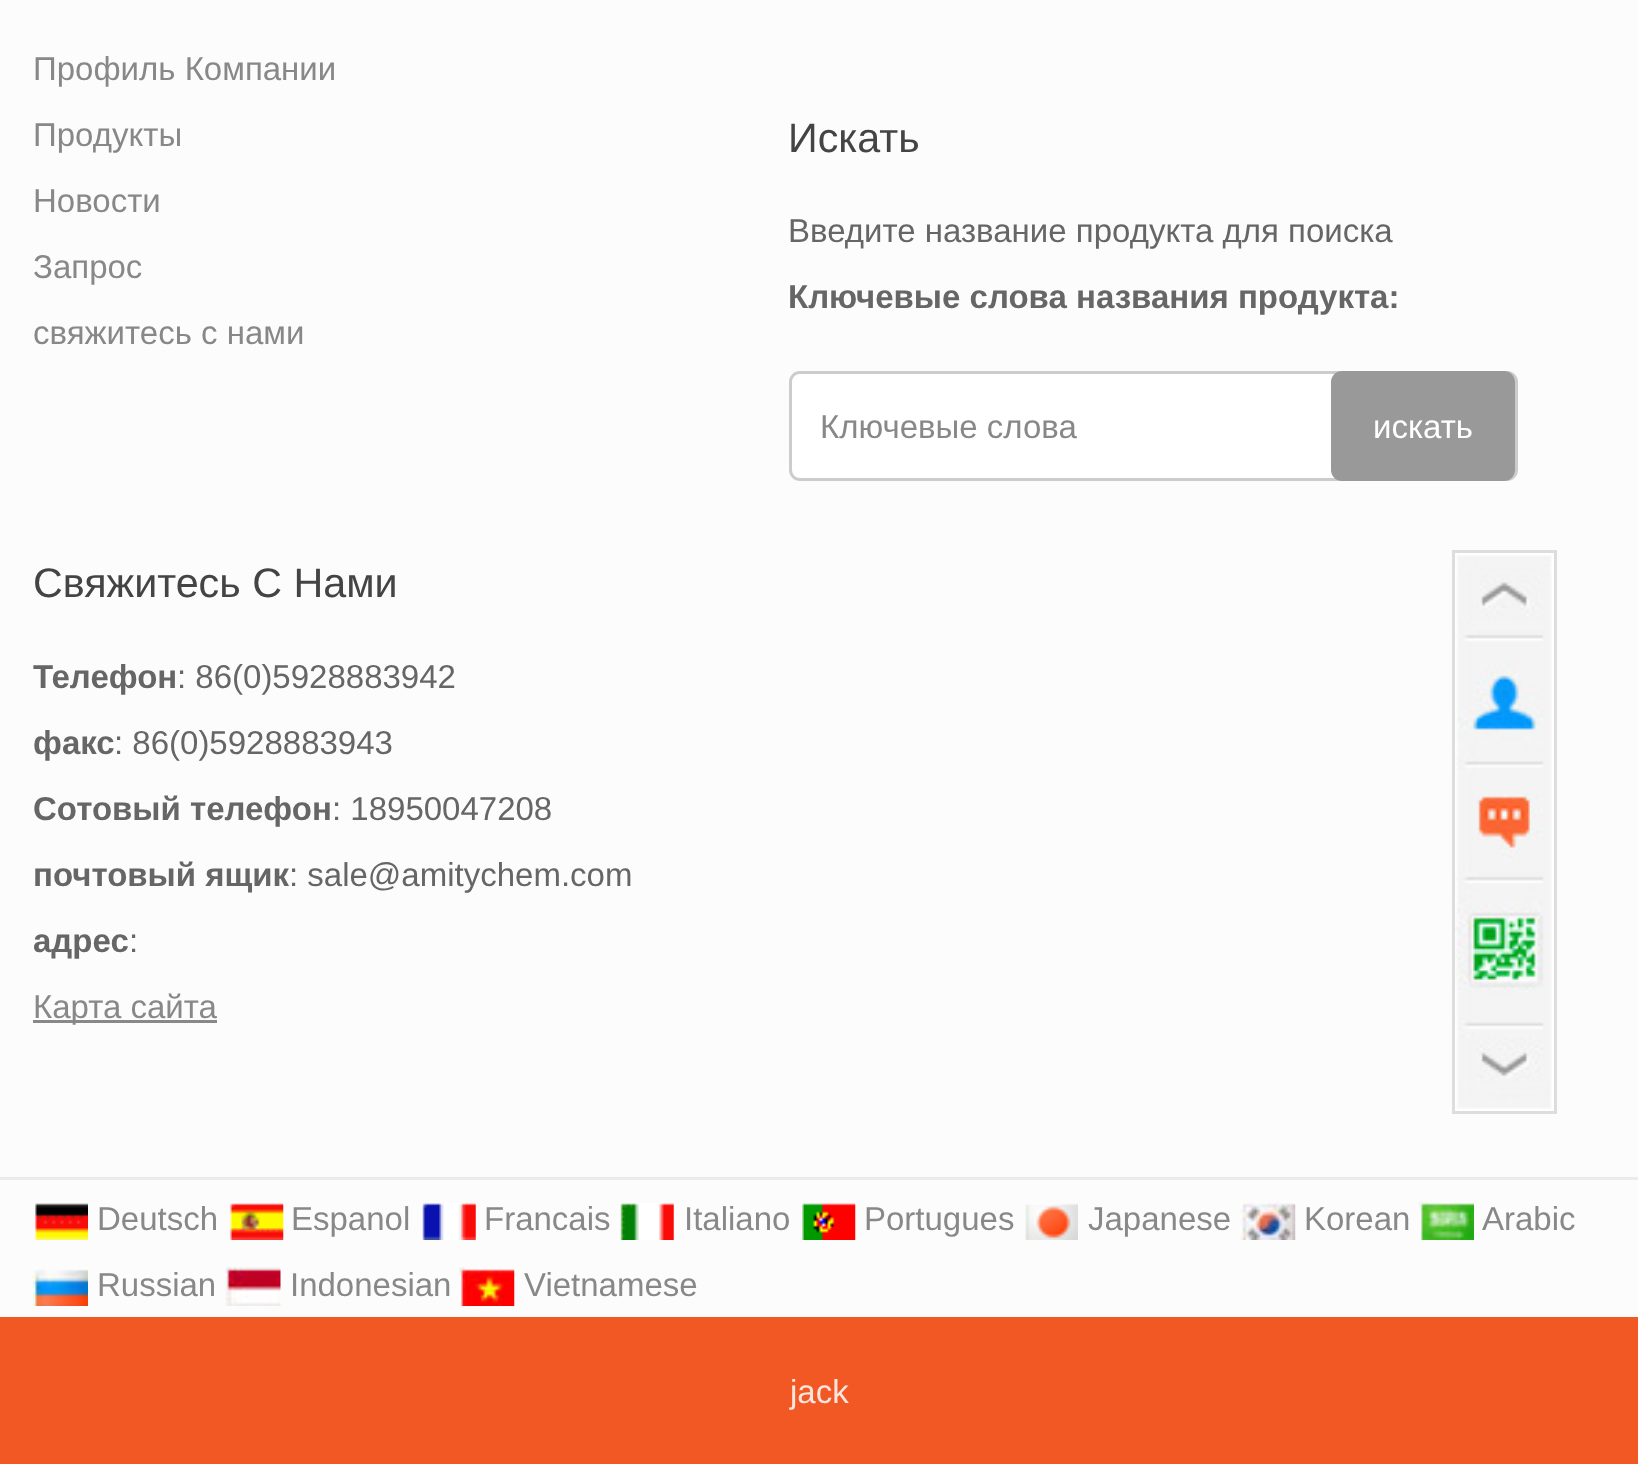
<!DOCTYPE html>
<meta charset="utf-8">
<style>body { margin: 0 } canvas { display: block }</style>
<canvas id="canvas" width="1638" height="1464"></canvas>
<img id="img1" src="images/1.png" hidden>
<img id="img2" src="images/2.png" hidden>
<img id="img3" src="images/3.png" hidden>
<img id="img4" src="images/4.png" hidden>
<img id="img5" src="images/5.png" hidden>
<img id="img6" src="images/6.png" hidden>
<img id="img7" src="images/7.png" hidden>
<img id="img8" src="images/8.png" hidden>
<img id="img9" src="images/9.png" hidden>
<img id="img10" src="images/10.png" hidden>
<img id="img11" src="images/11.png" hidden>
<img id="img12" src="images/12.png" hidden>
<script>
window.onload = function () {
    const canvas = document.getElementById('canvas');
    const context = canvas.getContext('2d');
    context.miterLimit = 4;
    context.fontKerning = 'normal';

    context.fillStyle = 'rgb(242, 88, 36)';
    context.fillRect(0, 0, 1638, 1464);
    context.fillStyle = 'rgb(252, 252, 252)';
    context.fillRect(0, 0, 1638, 1177);
    context.fillStyle = 'rgb(255, 255, 255)';
    context.beginPath();
    context.roundRect(790.5, 372.5, 726, 107, 9.5);
    context.fill();
    context.strokeStyle = 'rgb(204, 204, 204)';
    context.lineWidth = 3;
    context.stroke();
    context.fillStyle = 'rgb(153, 153, 153)';
    context.beginPath();
    context.roundRect(1331, 371, 184, 110, 11);
    context.fill();
    context.fillStyle = 'rgb(136, 136, 136)';
    context.fillRect(33, 1020, 184, 3);
    context.fillStyle = 'rgb(252, 252, 252)';
    context.fillRect(0, 1180, 1638, 137);
    context.fillStyle = 'rgb(235, 235, 235)';
    context.fillRect(0, 1177, 1638, 3);
    context.drawImage(document.getElementById('img1'), 35, 1203, 53, 37);
    context.drawImage(document.getElementById('img2'), 230, 1203, 54, 37);
    context.drawImage(document.getElementById('img3'), 422, 1203, 54, 37);
    context.drawImage(document.getElementById('img4'), 620, 1203, 54, 37);
    context.drawImage(document.getElementById('img5'), 802, 1203, 54, 37);
    context.drawImage(document.getElementById('img6'), 1025, 1203, 53, 37);
    context.drawImage(document.getElementById('img7'), 1240, 1201, 56, 39);
    context.drawImage(document.getElementById('img8'), 1419, 1201, 55, 39);
    context.drawImage(document.getElementById('img9'), 33, 1267, 55, 39);
    context.drawImage(document.getElementById('img10'), 225, 1267, 56, 39);
    context.drawImage(document.getElementById('img11'), 459, 1267, 56, 39);
    context.fillStyle = 'rgb(255, 255, 255)';
    context.fillRect(1455, 553, 99, 558);
    context.drawImage(document.getElementById('img12'), 1455, 555, 97, 554);
    context.strokeStyle = 'rgb(221, 221, 221)';
    context.strokeRect(1453.5, 551.5, 102, 561);
    context.font = '33px Liberation Sans';
    context.fillStyle = 'rgb(136, 136, 136)';
    context.fillText('Профиль Компании', 33, 80);
    context.fillText('Продукты', 33, 146);
    context.fillText('Новости', 33, 212);
    context.fillText('Запрос', 33, 278);
    context.fillText('свяжитесь с нами', 33, 344);
    context.font = '41.25px Liberation Sans';
    context.fillStyle = 'rgb(68, 68, 68)';
    context.fillText('Искать', 788, 152);
    context.font = '33px Liberation Sans';
    context.fillStyle = 'rgb(102, 102, 102)';
    context.fillText('Введите название продукта для поиска', 788, 242);
    context.font = 'bold 33px Liberation Sans';
    context.fillText('Ключевые слова названия продукта:', 788, 308);
    context.font = '33px Liberation Sans';
    context.fillStyle = 'rgb(136, 136, 136)';
    context.fillText('Ключевые слова', 820, 438);
    context.fillStyle = 'rgb(255, 255, 255)';
    context.fillText('искать', 1373, 438);
    context.font = '41.25px Liberation Sans';
    context.fillStyle = 'rgb(68, 68, 68)';
    context.fillText('Свяжитесь С Нами', 33, 597);
    context.font = 'bold 33px Liberation Sans';
    context.fillStyle = 'rgb(102, 102, 102)';
    context.fillText('Телефон', 33, 688);
    context.font = '33px Liberation Sans';
    context.fillText(': 86(0)5928883942', 177, 688);
    context.font = 'bold 33px Liberation Sans';
    context.fillText('факс', 33, 754);
    context.font = '33px Liberation Sans';
    context.fillText(': 86(0)5928883943', 114, 754);
    context.font = 'bold 33px Liberation Sans';
    context.fillText('Сотовый телефон', 33, 820);
    context.font = '33px Liberation Sans';
    context.fillText(': 18950047208', 332, 820);
    context.font = 'bold 33px Liberation Sans';
    context.fillText('почтовый ящик', 33, 886);
    context.font = '33px Liberation Sans';
    context.fillText(': sale@amitychem.com', 289, 886);
    context.font = 'bold 33px Liberation Sans';
    context.fillText('адрес', 33, 952);
    context.font = '33px Liberation Sans';
    context.fillText(':', 129, 952);
    context.fillStyle = 'rgb(136, 136, 136)';
    context.fillText('Карта сайта', 33, 1018);
    context.fillText('Deutsch', 97, 1230);
    context.fillText('Espanol', 291, 1230);
    context.fillText('Francais', 484, 1230);
    context.fillText('Italiano', 684, 1230);
    context.fillText('Portugues', 864, 1230);
    context.fillText('Japanese', 1088, 1230);
    context.fillText('Korean', 1304, 1230);
    context.fillText('Arabic', 1482, 1230);
    context.fillText('Russian', 97, 1296);
    context.fillText('Indonesian', 290, 1296);
    context.fillText('Vietnamese', 524, 1296);
    context.fillStyle = 'rgb(253, 230, 222)';
    context.fillText('jack', 790, 1403);
};
</script>
